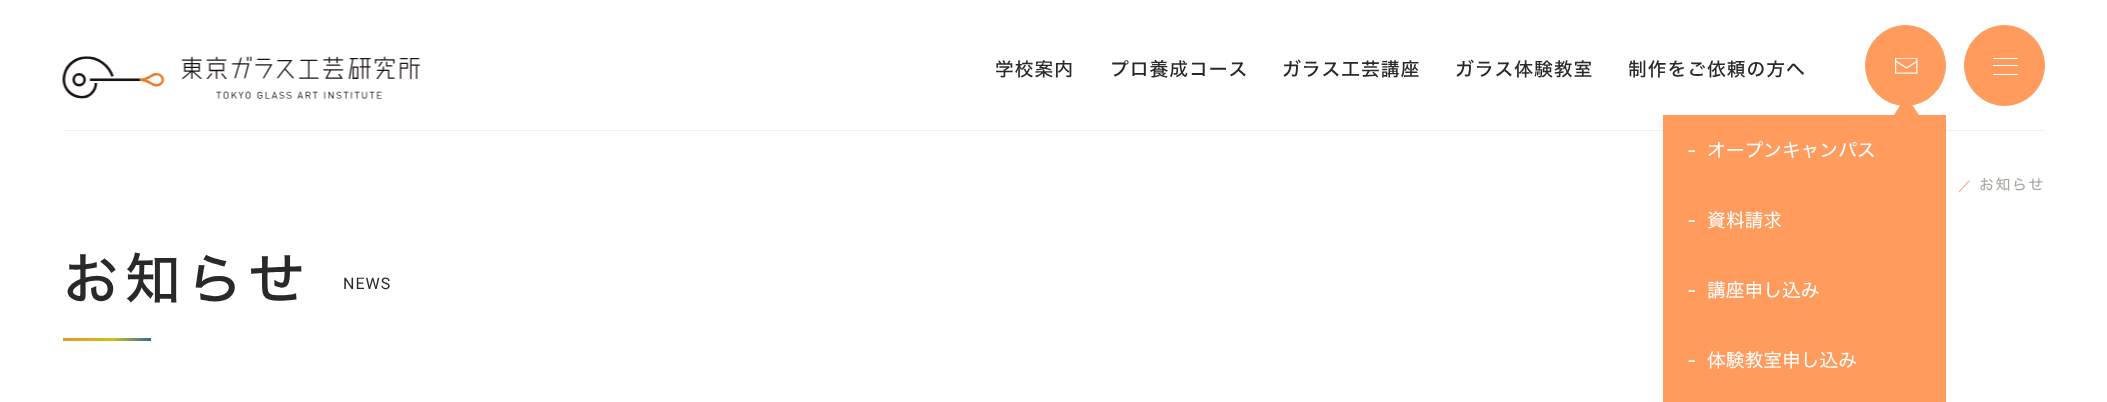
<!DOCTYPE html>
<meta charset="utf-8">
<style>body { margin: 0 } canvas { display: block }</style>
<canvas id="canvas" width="2107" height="402"></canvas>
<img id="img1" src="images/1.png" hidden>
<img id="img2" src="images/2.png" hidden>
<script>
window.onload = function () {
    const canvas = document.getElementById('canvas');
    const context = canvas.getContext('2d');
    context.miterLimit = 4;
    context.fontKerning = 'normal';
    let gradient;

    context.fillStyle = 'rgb(255, 255, 255)';
    context.fillRect(0, 0, 2107, 402);
    context.fillStyle = 'rgb(241, 240, 236)';
    context.fillRect(63, 130, 1982, 1);
    context.drawImage(document.getElementById('img1'), 62, 56, 359, 43);
    context.fillStyle = 'rgb(255, 155, 92)';
    context.beginPath();
    context.arc(2004.5, 65.5, 40, 0, 2 * Math.PI);
    context.fill();
    context.strokeStyle = 'rgb(255, 155, 92)';
    context.stroke();
    context.fillStyle = 'rgb(255, 255, 255)';
    context.fillRect(1993, 58, 25, 1);
    context.fillRect(1993, 65, 25, 1);
    context.fillRect(1993, 74, 25, 1);
    context.fillStyle = 'rgb(255, 155, 92)';
    context.beginPath();
    context.arc(1905.5, 65.5, 40, 0, 2 * Math.PI);
    context.fill();
    context.stroke();
    context.drawImage(document.getElementById('img2'), 1895, 58, 23, 16);
    context.beginPath();
    context.moveTo(1919, 115);
    context.lineTo(1894, 115);
    context.lineTo(1906, 96);
    context.closePath();
    context.fill();
    context.fillRect(1663, 115, 283, 287);
    gradient = context.createLinearGradient(84, 316, 130, 362);
    gradient.addColorStop(0, 'rgb(234, 148, 48)');
    gradient.addColorStop(0.57, 'rgb(206, 192, 24)');
    gradient.addColorStop(1, 'rgb(37, 107, 159)');
    context.fillStyle = gradient;
    context.fillRect(63, 338, 88, 3);
    context.letterSpacing = '1px';
    context.font = '500 18.75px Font';
    context.fillStyle = 'rgb(41, 41, 41)';
    context.fillText('学校案内', 995, 76);
    context.fillText('プロ養成コース', 1110, 76);
    context.fillText('ガラス工芸講座', 1282, 76);
    context.fillText('ガラス体験教室', 1455, 76);
    context.fillText('制作をご依頼の方へ', 1628, 76);
    context.letterSpacing = '0px';
    context.font = '20px Font';
    context.fillStyle = 'rgb(255, 255, 255)';
    context.fillText('-', 1688, 157);
    context.font = '18.75px Font';
    context.fillText('オープンキャンパス', 1707, 157);
    context.font = '20px Font';
    context.fillText('-', 1688, 227);
    context.font = '18.75px Font';
    context.fillText('資料請求', 1707, 227);
    context.font = '20px Font';
    context.fillText('-', 1688, 297);
    context.font = '18.75px Font';
    context.fillText('講座申し込み', 1707, 297);
    context.font = '20px Font';
    context.fillText('-', 1688, 367);
    context.font = '18.75px Font';
    context.fillText('体験教室申し込み', 1707, 367);
    context.letterSpacing = '1.5px';
    context.font = '500 14px WenQuanYi Zen Hei';
    context.fillStyle = 'rgb(255, 155, 92)';
    context.fillText('／', 1958, 190);
    context.font = '15px Font';
    context.fillStyle = 'rgb(167, 165, 158)';
    context.fillText('お知らせ', 1979, 190);
    context.letterSpacing = '5.5px';
    context.font = '500 56.25px Font';
    context.fillStyle = 'rgb(41, 41, 41)';
    context.fillText('お知らせ', 63, 300);
    context.letterSpacing = '1px';
    context.font = '16px Roboto';
    context.fillText('NEWS', 343, 289);
};
</script>
